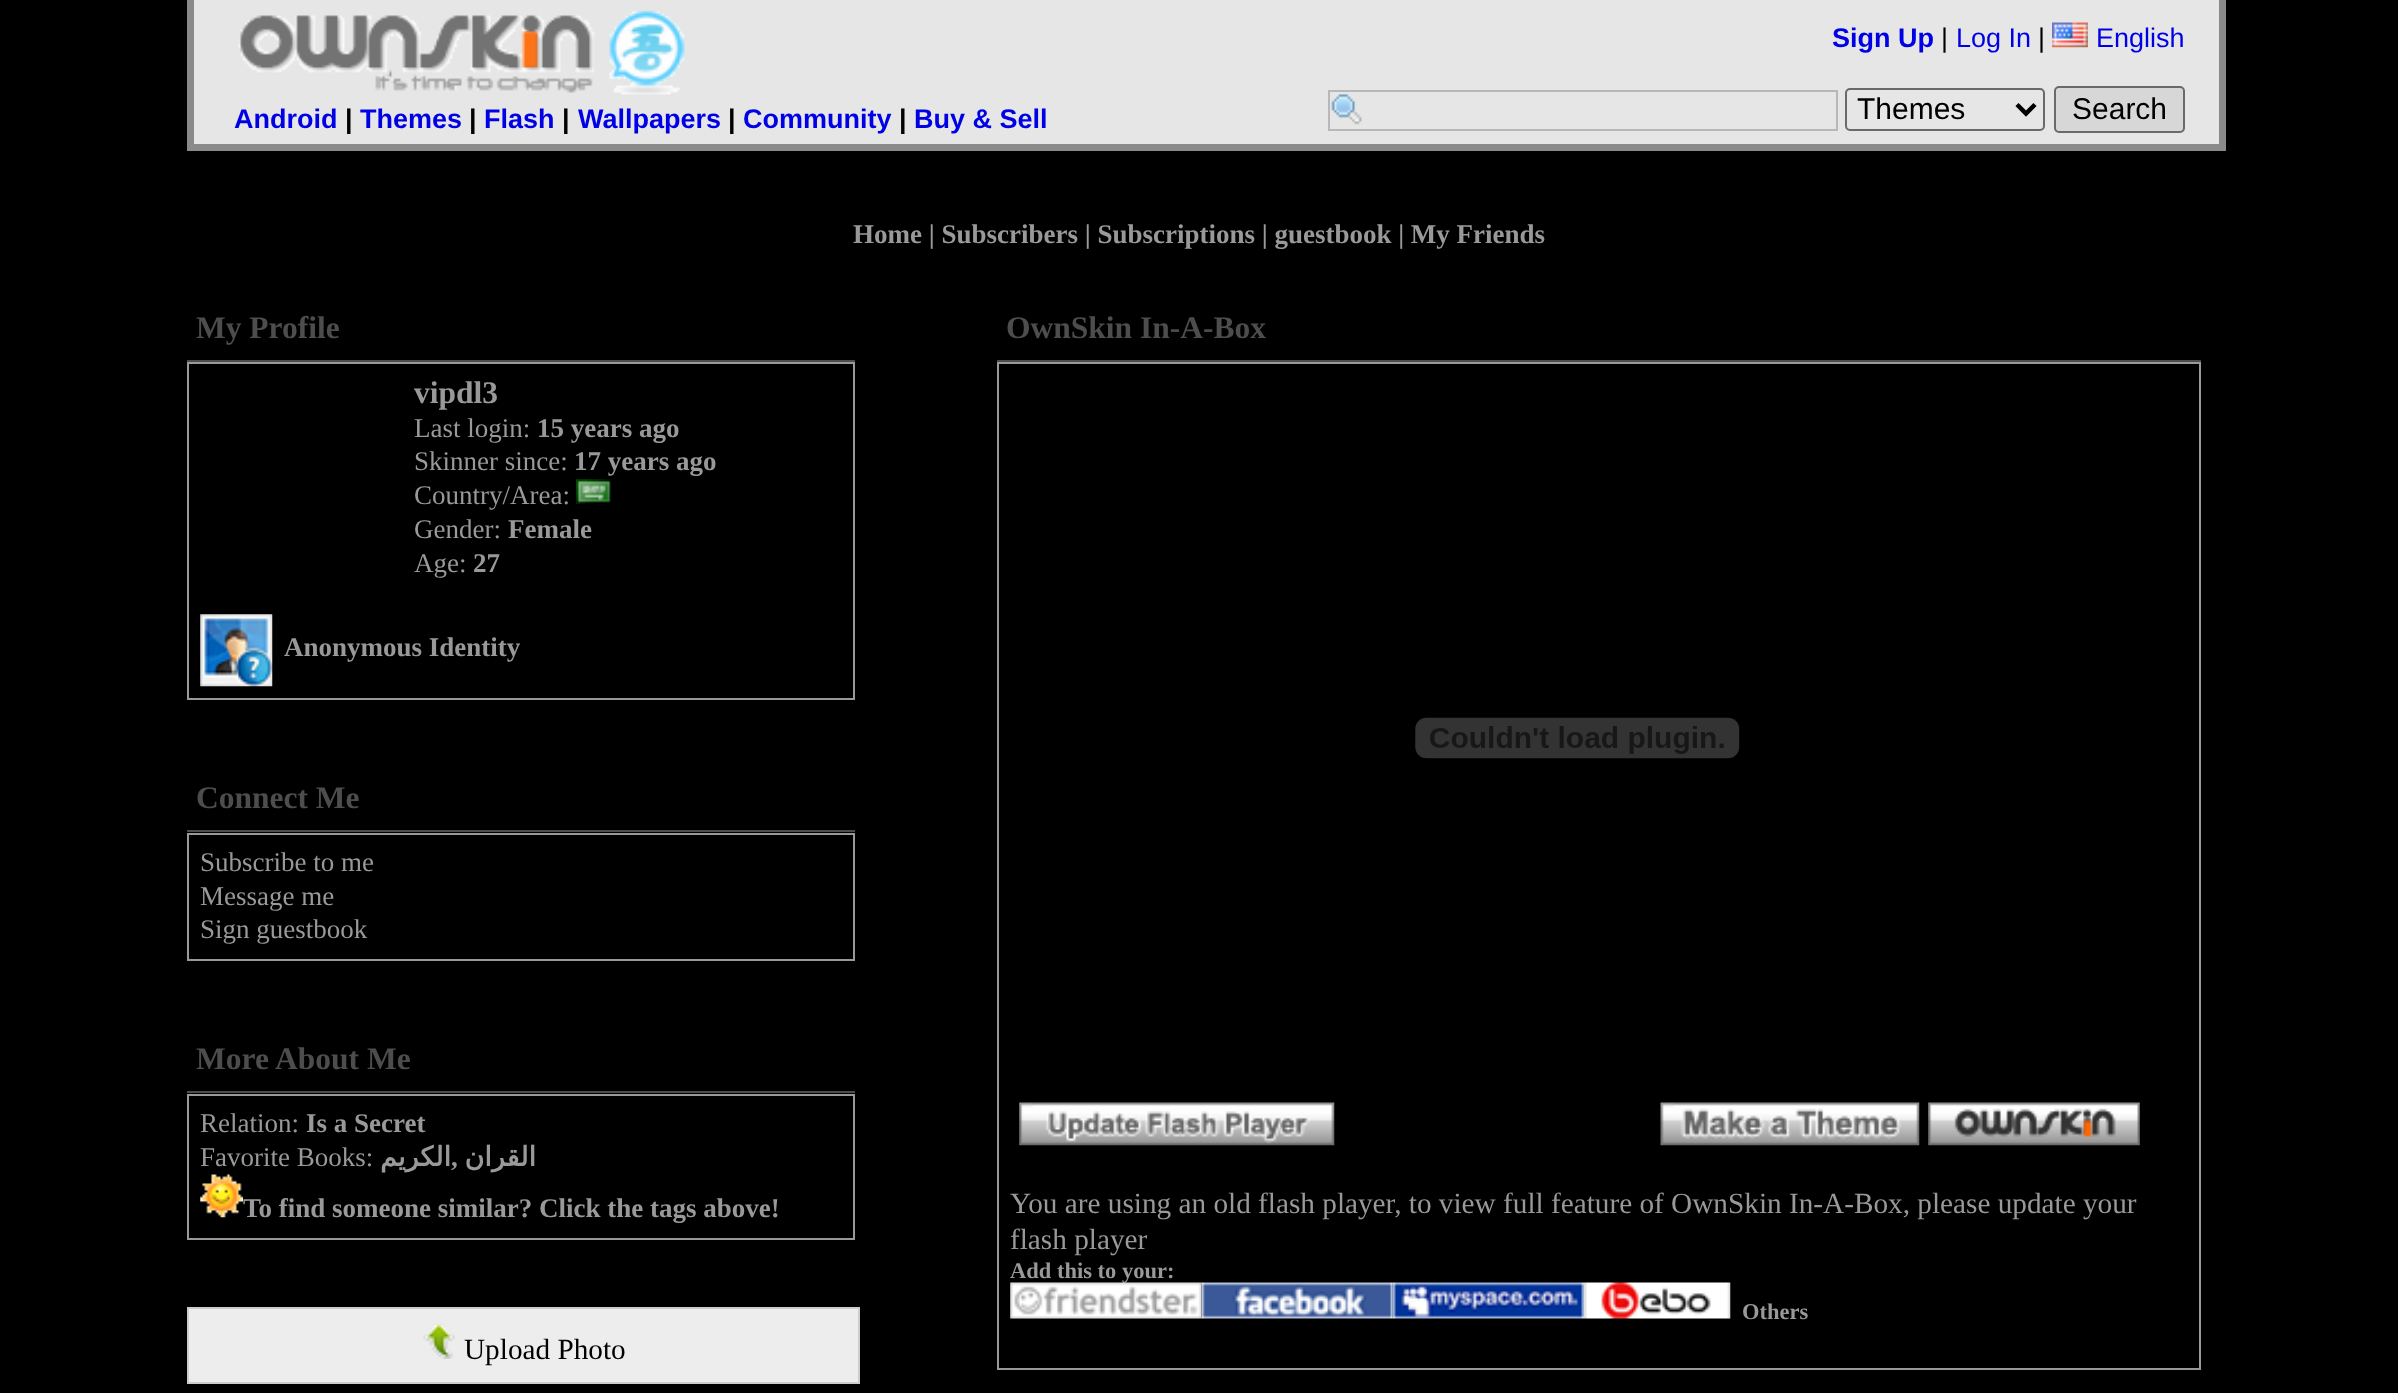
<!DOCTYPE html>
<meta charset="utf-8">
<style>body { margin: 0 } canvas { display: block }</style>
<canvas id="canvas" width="2398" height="1393"></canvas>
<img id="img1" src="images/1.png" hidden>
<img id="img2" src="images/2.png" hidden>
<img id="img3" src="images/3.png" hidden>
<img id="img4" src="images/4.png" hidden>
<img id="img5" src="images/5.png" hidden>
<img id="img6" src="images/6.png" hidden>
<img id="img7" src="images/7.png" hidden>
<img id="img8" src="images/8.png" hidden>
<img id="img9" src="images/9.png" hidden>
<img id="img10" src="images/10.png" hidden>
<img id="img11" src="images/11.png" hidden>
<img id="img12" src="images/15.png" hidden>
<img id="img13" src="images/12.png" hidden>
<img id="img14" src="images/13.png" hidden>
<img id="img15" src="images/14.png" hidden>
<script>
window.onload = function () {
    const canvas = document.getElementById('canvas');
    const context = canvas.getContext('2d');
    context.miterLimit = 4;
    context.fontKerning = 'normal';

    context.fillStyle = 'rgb(0, 0, 0)';
    context.fillRect(0, 0, 2398, 1393);
    context.fillStyle = 'rgb(230, 230, 230)';
    context.fillRect(194, 0, 2025, 144);
    context.fillStyle = 'rgb(138, 138, 138)';
    context.fillRect(2219, 0, 7, 151);
    context.fillRect(187, 144, 2038, 7);
    context.fillRect(187, 0, 7, 151);
    context.drawImage(document.getElementById('img1'), 238, 10, 447, 85);
    context.drawImage(document.getElementById('img2'), 2052, 22, 36, 26);
    context.drawImage(document.getElementById('img3'), 1331, 94, 31, 31);
    context.strokeStyle = 'rgb(184, 184, 184)';
    context.lineWidth = 2;
    context.strokeRect(1329, 91, 508, 39);
    context.beginPath();
    context.roundRect(1846, 89, 198, 41, 4);
    context.strokeStyle = 'rgb(106, 106, 106)';
    context.stroke();
    context.beginPath();
    context.moveTo(2017, 104.5);
    context.lineTo(2026, 113.5);
    context.lineTo(2035, 104.5);
    context.strokeStyle = 'rgb(0, 0, 0)';
    context.lineWidth = 4.5;
    context.stroke();
    context.fillStyle = 'rgb(215, 215, 215)';
    context.beginPath();
    context.roundRect(2055, 87, 129, 45, 4);
    context.fill();
    context.strokeStyle = 'rgb(106, 106, 106)';
    context.lineWidth = 2;
    context.stroke();
    context.fillStyle = 'rgb(77, 77, 77)';
    context.fillRect(187, 360, 668, 2);
    context.strokeStyle = 'rgb(153, 153, 153)';
    context.strokeRect(188, 363, 666, 336);
    context.drawImage(document.getElementById('img4'), 576, 479, 35, 25);
    context.drawImage(document.getElementById('img5'), 200, 614, 73, 73);
    context.fillRect(187, 830, 668, 2);
    context.strokeRect(188, 834, 666, 126);
    context.fillRect(187, 1091, 668, 2);
    context.strokeRect(188, 1095, 666, 144);
    context.drawImage(document.getElementById('img6'), 200, 1174, 43, 44);
    context.fillStyle = 'rgb(237, 237, 237)';
    context.beginPath();
    context.rect(188, 1308, 671, 75);
    context.fill();
    context.strokeStyle = 'rgb(204, 204, 204)';
    context.stroke();
    context.drawImage(document.getElementById('img7'), 423, 1323, 32, 36);
    context.fillStyle = 'rgb(77, 77, 77)';
    context.fillRect(997, 360, 1204, 2);
    context.strokeStyle = 'rgb(153, 153, 153)';
    context.strokeRect(998, 363, 1202, 1006);
    context.drawImage(document.getElementById('img8'), 1415, 717, 325, 42);
    context.drawImage(document.getElementById('img9'), 1019, 1102, 316, 44);
    context.drawImage(document.getElementById('img10'), 1660, 1102, 260, 44);
    context.drawImage(document.getElementById('img11'), 1928, 1102, 212, 44);
    context.drawImage(document.getElementById('img12'), 1584, 1282, 147, 37);
    context.font = 'bold 27px Liberation Sans';
    context.fillStyle = 'rgb(0, 0, 230)';
    context.fillText('Android', 234, 128);
    context.fillStyle = 'rgb(0, 0, 0)';
    context.fillText('|', 345, 128);
    context.fillStyle = 'rgb(0, 0, 230)';
    context.fillText('Themes', 360, 128);
    context.fillStyle = 'rgb(0, 0, 0)';
    context.fillText('|', 469, 128);
    context.fillStyle = 'rgb(0, 0, 230)';
    context.fillText('Flash', 484, 128);
    context.fillStyle = 'rgb(0, 0, 0)';
    context.fillText('|', 562, 128);
    context.fillStyle = 'rgb(0, 0, 230)';
    context.fillText('Wallpapers', 578, 128);
    context.fillStyle = 'rgb(0, 0, 0)';
    context.fillText('|', 728, 128);
    context.fillStyle = 'rgb(0, 0, 230)';
    context.fillText('Community', 743, 128);
    context.fillStyle = 'rgb(0, 0, 0)';
    context.fillText('|', 899, 128);
    context.fillStyle = 'rgb(0, 0, 230)';
    context.fillText('Buy & Sell', 914, 128);
    context.fillText('Sign Up', 1832, 47);
    context.font = '27px Liberation Sans';
    context.fillStyle = 'rgb(0, 0, 0)';
    context.fillText('|', 1941, 47);
    context.fillStyle = 'rgb(0, 0, 230)';
    context.fillText('Log In', 1956, 47);
    context.fillStyle = 'rgb(0, 0, 0)';
    context.fillText('|', 2038, 47);
    context.fillStyle = 'rgb(0, 0, 230)';
    context.fillText('English', 2096, 47);
    context.font = '30px Liberation Sans';
    context.fillStyle = 'rgb(0, 0, 0)';
    context.fillText('Themes', 1857, 119);
    context.fillText('Search', 2072, 119);
    context.font = 'bold 27px Liberation Serif';
    context.fillStyle = 'rgb(153, 153, 153)';
    context.fillText('Home | Subscribers | Subscriptions | guestbook | My Friends', 853, 243);
    context.font = 'bold 31.5px Liberation Serif';
    context.fillStyle = 'rgb(77, 77, 77)';
    context.fillText('My Profile', 196, 338);
    context.fillStyle = 'rgb(153, 153, 153)';
    context.fillText('vipdl3', 414, 403);
    context.font = '27px Liberation Serif';
    context.fillText('Last login:', 414, 437);
    context.font = 'bold 27px Liberation Serif';
    context.fillText('15 years ago', 537, 437);
    context.font = '27px Liberation Serif';
    context.fillText('Skinner since:', 414, 470);
    context.font = 'bold 27px Liberation Serif';
    context.fillText('17 years ago', 574, 470);
    context.font = '27px Liberation Serif';
    context.fillText('Country/Area:', 414, 504);
    context.fillText('Gender:', 414, 538);
    context.font = 'bold 27px Liberation Serif';
    context.fillText('Female', 508, 538);
    context.font = '27px Liberation Serif';
    context.fillText('Age:', 414, 572);
    context.font = 'bold 27px Liberation Serif';
    context.fillText('27', 473, 572);
    context.fillText('Anonymous Identity', 284, 656);
    context.font = 'bold 31.5px Liberation Serif';
    context.fillStyle = 'rgb(77, 77, 77)';
    context.fillText('Connect Me', 196, 808);
    context.font = '27px Liberation Serif';
    context.fillStyle = 'rgb(153, 153, 153)';
    context.fillText('Subscribe to me', 200, 871);
    context.fillText('Message me', 200, 905);
    context.fillText('Sign guestbook', 200, 938);
    context.font = 'bold 31.5px Liberation Serif';
    context.fillStyle = 'rgb(77, 77, 77)';
    context.fillText('More About Me', 196, 1069);
    context.font = '27px Liberation Serif';
    context.fillStyle = 'rgb(153, 153, 153)';
    context.fillText('Relation:', 200, 1132);
    context.font = 'bold 27px Liberation Serif';
    context.fillText('Is a Secret', 306, 1132);
    context.font = '27px Liberation Serif';
    context.fillText('Favorite Books:', 200, 1166);
    context.direction = 'rtl';
    context.font = 'bold 27px DejaVu Sans';
    context.fillText('الكريم', 451, 1166);
    context.direction = 'ltr';
    context.font = 'bold 27px Liberation Serif';
    context.fillText(',', 451, 1166);
    context.direction = 'rtl';
    context.font = 'bold 27px DejaVu Sans';
    context.fillText('القران', 536, 1166);
    context.direction = 'ltr';
    context.font = 'bold 27px Liberation Serif';
    context.fillText('To find someone similar? Click the tags above!', 243, 1217);
    context.font = '29.25px Liberation Serif';
    context.fillStyle = 'rgb(0, 0, 0)';
    context.fillText('Upload Photo', 464, 1359);
    context.font = 'bold 31.5px Liberation Serif';
    context.fillStyle = 'rgb(77, 77, 77)';
    context.fillText('OwnSkin In-A-Box', 1006, 338);
    context.font = '29.25px Liberation Serif';
    context.fillStyle = 'rgb(153, 153, 153)';
    context.fillText('You are using an old flash player, to view full feature of OwnSkin In-A-Box, please update your', 1010, 1213);
    context.fillText('flash player', 1010, 1249);
    context.font = 'bold 22.5px Liberation Serif';
    context.fillText('Add this to your:', 1010, 1278);
    context.drawImage(document.getElementById('img13'), 1010, 1282, 192, 37);
    context.drawImage(document.getElementById('img14'), 1201, 1282, 192, 37);
    context.drawImage(document.getElementById('img15'), 1392, 1282, 192, 37);
    context.fillText('Others', 1742, 1319);
};
</script>
